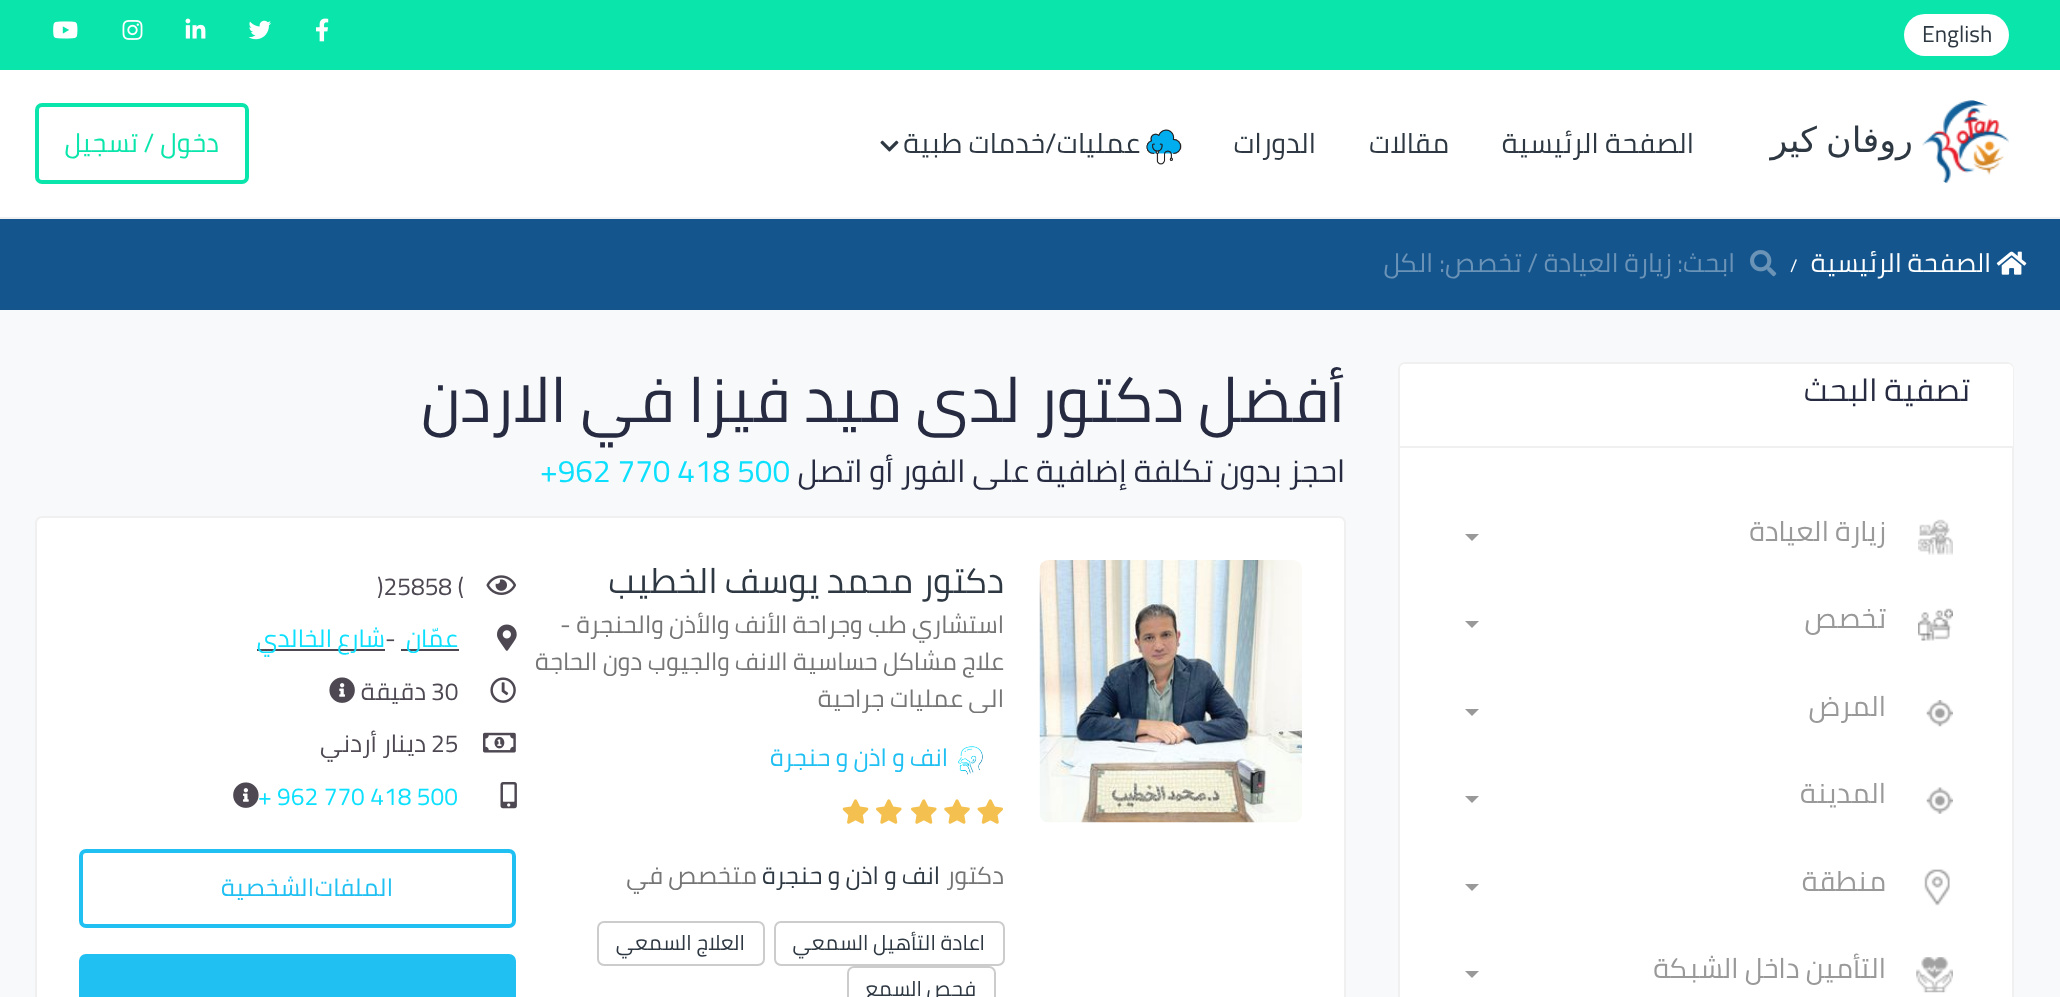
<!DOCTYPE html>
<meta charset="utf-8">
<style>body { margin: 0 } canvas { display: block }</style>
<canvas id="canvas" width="2060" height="997"></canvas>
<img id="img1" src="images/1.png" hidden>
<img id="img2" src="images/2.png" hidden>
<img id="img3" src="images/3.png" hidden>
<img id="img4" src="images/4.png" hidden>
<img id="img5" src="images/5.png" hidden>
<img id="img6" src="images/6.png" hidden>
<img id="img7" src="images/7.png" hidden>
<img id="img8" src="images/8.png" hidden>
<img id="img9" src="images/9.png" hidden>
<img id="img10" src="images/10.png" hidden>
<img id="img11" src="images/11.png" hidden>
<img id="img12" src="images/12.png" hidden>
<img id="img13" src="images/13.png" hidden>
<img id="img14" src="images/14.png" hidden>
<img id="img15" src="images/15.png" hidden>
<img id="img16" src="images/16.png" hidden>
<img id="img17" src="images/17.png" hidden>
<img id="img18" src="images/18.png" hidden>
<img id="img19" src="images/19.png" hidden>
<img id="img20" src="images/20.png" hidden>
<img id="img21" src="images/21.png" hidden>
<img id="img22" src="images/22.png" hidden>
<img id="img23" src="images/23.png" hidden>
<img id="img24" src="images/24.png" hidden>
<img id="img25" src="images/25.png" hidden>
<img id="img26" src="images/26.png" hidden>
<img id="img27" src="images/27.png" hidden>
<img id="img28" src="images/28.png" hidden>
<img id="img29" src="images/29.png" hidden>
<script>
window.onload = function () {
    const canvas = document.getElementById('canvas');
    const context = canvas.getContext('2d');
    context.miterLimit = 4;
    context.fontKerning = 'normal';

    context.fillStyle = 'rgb(248, 249, 250)';
    context.fillRect(0, 0, 2060, 997);
    context.fillStyle = 'rgb(9, 229, 171)';
    context.fillRect(0, 0, 2060, 70);
    context.fillStyle = 'rgb(255, 255, 255)';
    context.beginPath();
    context.roundRect(1904, 14, 105, 42, 21);
    context.fill();
    context.drawImage(document.getElementById('img1'), 316, 18, 13, 24);
    context.drawImage(document.getElementById('img2'), 248, 20, 23, 20);
    context.drawImage(document.getElementById('img3'), 185, 18, 21, 21);
    context.drawImage(document.getElementById('img4'), 122, 20, 21, 20);
    context.drawImage(document.getElementById('img5'), 53, 21, 25, 18);
    context.fillRect(0, 70, 2060, 147);
    context.fillStyle = 'rgb(240, 240, 240)';
    context.fillRect(0, 217, 2060, 2);
    context.fillStyle = 'rgb(255, 250, 250)';
    context.beginPath();
    context.arc(1965.5, 143.5, 43.5, 0, 2 * Math.PI);
    context.fill();
    context.drawImage(document.getElementById('img6'), 1922, 100, 87, 87);
    context.drawImage(document.getElementById('img7'), 1146, 129, 36, 36);
    context.drawImage(document.getElementById('img8'), 880, 140, 19, 12);
    context.beginPath();
    context.roundRect(37, 105, 210, 77, 5);
    context.strokeStyle = 'rgb(9, 229, 171)';
    context.lineWidth = 4;
    context.stroke();
    context.fillStyle = 'rgb(21, 85, 141)';
    context.fillRect(0, 219, 2060, 91);
    context.drawImage(document.getElementById('img9'), 1996, 251, 31, 24);
    context.drawImage(document.getElementById('img10'), 1750, 250, 27, 27);
    context.fillStyle = 'rgb(255, 255, 255)';
    context.beginPath();
    context.roundRect(1399, 363, 614, 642, 6);
    context.fill();
    context.strokeStyle = 'rgb(240, 240, 240)';
    context.lineWidth = 2;
    context.stroke();
    context.beginPath();
    context.roundRect(1400, 364, 613, 84, [5, 5, 0, 0]);
    context.fill();
    context.fillStyle = 'rgb(240, 240, 240)';
    context.fillRect(1400, 446, 613, 2);
    context.drawImage(document.getElementById('img11'), 1918, 519, 35, 36);
    context.fillStyle = 'rgb(153, 153, 153)';
    context.beginPath();
    context.moveTo(1465, 534);
    context.lineTo(1479, 534);
    context.lineTo(1472, 541);
    context.closePath();
    context.fill();
    context.drawImage(document.getElementById('img12'), 1918, 608, 35, 33);
    context.beginPath();
    context.moveTo(1465, 621);
    context.lineTo(1479, 621);
    context.lineTo(1472, 628);
    context.closePath();
    context.fill();
    context.drawImage(document.getElementById('img13'), 1926, 700, 27, 27);
    context.beginPath();
    context.moveTo(1465, 709);
    context.lineTo(1479, 709);
    context.lineTo(1472, 716);
    context.closePath();
    context.fill();
    context.drawImage(document.getElementById('img14'), 1926, 787, 27, 27);
    context.beginPath();
    context.moveTo(1465, 796);
    context.lineTo(1479, 796);
    context.lineTo(1472, 803);
    context.closePath();
    context.fill();
    context.drawImage(document.getElementById('img15'), 1924, 869, 26, 37);
    context.beginPath();
    context.moveTo(1465, 884);
    context.lineTo(1479, 884);
    context.lineTo(1472, 891);
    context.closePath();
    context.fill();
    context.drawImage(document.getElementById('img16'), 1916, 957, 37, 36);
    context.beginPath();
    context.moveTo(1465, 971);
    context.lineTo(1479, 971);
    context.lineTo(1472, 978);
    context.closePath();
    context.fill();
    context.fillStyle = 'rgb(255, 255, 255)';
    context.beginPath();
    context.roundRect(36, 517, 1309, 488, 6);
    context.fill();
    context.stroke();
    context.drawImage(document.getElementById('img17'), 1039, 560, 263, 263);
    context.drawImage(document.getElementById('img18'), 958, 746, 25, 29);
    context.drawImage(document.getElementById('img19'), 977, 799, 26, 25);
    context.drawImage(document.getElementById('img20'), 944, 799, 26, 25);
    context.drawImage(document.getElementById('img21'), 911, 799, 26, 25);
    context.drawImage(document.getElementById('img21'), 876, 799, 26, 25);
    context.drawImage(document.getElementById('img22'), 842, 799, 27, 25);
    context.beginPath();
    context.roundRect(775, 922, 229, 43, 6);
    context.strokeStyle = 'rgb(204, 204, 204)';
    context.stroke();
    context.beginPath();
    context.roundRect(598, 922, 166, 43, 6);
    context.stroke();
    context.beginPath();
    context.roundRect(848, 967, 147, 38, 6);
    context.stroke();
    context.drawImage(document.getElementById('img23'), 486, 575, 30, 20);
    context.drawImage(document.getElementById('img24'), 497, 624, 20, 27);
    context.fillStyle = 'rgb(78, 72, 82)';
    context.fillRect(401, 649, 58, 2);
    context.fillRect(257, 649, 128, 2);
    context.drawImage(document.getElementById('img25'), 490, 677, 26, 26);
    context.drawImage(document.getElementById('img26'), 329, 677, 26, 26);
    context.drawImage(document.getElementById('img27'), 483, 732, 33, 21);
    context.drawImage(document.getElementById('img28'), 500, 782, 17, 27);
    context.drawImage(document.getElementById('img29'), 233, 782, 26, 26);
    context.beginPath();
    context.roundRect(81, 851, 433, 75, 5);
    context.strokeStyle = 'rgb(32, 192, 243)';
    context.lineWidth = 4;
    context.stroke();
    context.fillStyle = 'rgb(32, 192, 243)';
    context.beginPath();
    context.roundRect(81, 956, 433, 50, 5);
    context.fill();
    context.stroke();
    context.font = '23px Cairo';
    context.fillStyle = 'rgb(46, 56, 66)';
    context.fillText('English', 1922, 42);
    context.wordSpacing = '-2px';
    context.direction = 'rtl';
    context.font = '35px DejaVu Sans';
    context.fillText('روفان كير', 1913, 152);
    context.wordSpacing = '0px';
    context.font = '28px Cairo';
    context.fillText('الصفحة الرئيسية', 1694, 153);
    context.fillText('مقالات', 1449, 153);
    context.fillText('الدورات', 1316, 153);
    context.fillText('عمليات/خدمات طبية', 1140, 153);
    context.font = '26.25px Cairo';
    context.fillStyle = 'rgb(9, 229, 171)';
    context.fillText('دخول / تسجيل', 219, 152);
    context.fillStyle = 'rgb(255, 255, 255)';
    context.fillText('الصفحة الرئيسية', 1991, 272);
    context.direction = 'ltr';
    context.font = '18px Cairo';
    context.fillText('/', 1790, 272);
    context.direction = 'rtl';
    context.font = '26.25px Cairo';
    context.fillStyle = 'rgb(106, 147, 183)';
    context.fillText('ابحث:', 1735, 272);
    context.fillText('زيارة العيادة', 1672, 272);
    context.fillText('/ تخصص:', 1538, 272);
    context.fillText('الكل', 1433, 272);
    context.font = '31.5px Cairo';
    context.fillStyle = 'rgb(39, 43, 65)';
    context.fillText('تصفية البحث', 1970, 401);
    context.font = '28px Cairo';
    context.fillStyle = 'rgb(153, 153, 153)';
    context.fillText('زيارة العيادة', 1886, 541);
    context.fillText('تخصص', 1886, 628);
    context.fillText('المرض', 1886, 716);
    context.fillText('المدينة', 1886, 803);
    context.fillText('منطقة', 1886, 891);
    context.fillText('التأمين داخل الشبكة', 1886, 978);
    context.font = '63px Cairo';
    context.fillStyle = 'rgb(39, 43, 65)';
    context.fillText('أفضل دكتور', 1345, 422);
    context.fillText('لدى ميد فيزا في الاردن', 1021, 422);
    context.font = '31.5px Cairo';
    context.fillText('احجز بدون تكلفة إضافية على الفور أو اتصل', 1345, 482);
    context.direction = 'ltr';
    context.fillStyle = 'rgb(13, 224, 254)';
    context.fillText('+962 770 418 500', 540, 482);
    context.direction = 'rtl';
    context.font = '35px Cairo';
    context.fillStyle = 'rgb(46, 56, 66)';
    context.fillText('دكتور', 1004, 593);
    context.fillText('محمد يوسف الخطيب', 913, 593);
    context.font = '24.5px Cairo';
    context.fillStyle = 'rgb(117, 117, 117)';
    context.fillText('استشاري طب وجراحة الأنف والأذن والحنجرة -', 1004, 633);
    context.fillText('علاج مشاكل حساسية الانف والجيوب دون الحاجة', 1004, 670);
    context.fillText('الى عمليات جراحية', 1004, 707);
    context.fillStyle = 'rgb(32, 192, 243)';
    context.fillText('انف و اذن و حنجرة', 948, 766);
    context.fillStyle = 'rgb(117, 117, 117)';
    context.fillText('دكتور', 1004, 884);
    context.fillStyle = 'rgb(46, 56, 66)';
    context.fillText('انف و اذن و حنجرة', 940, 884);
    context.fillStyle = 'rgb(117, 117, 117)';
    context.fillText('متخصص في', 757, 884);
    context.font = '21px Cairo';
    context.fillStyle = 'rgb(46, 56, 66)';
    context.fillText('اعادة التأهيل السمعي', 985, 950);
    context.fillText('العلاج السمعي', 745, 950);
    context.fillText('فحص السمع', 976, 996);
    context.direction = 'ltr';
    context.font = '24.5px Cairo';
    context.fillStyle = 'rgb(78, 72, 82)';
    context.fillText(')25858 (', 377, 595);
    context.direction = 'rtl';
    context.fillStyle = 'rgb(13, 224, 254)';
    context.fillText('عمّان', 458, 647);
    context.direction = 'ltr';
    context.fillStyle = 'rgb(78, 72, 82)';
    context.fillText('-', 385, 647);
    context.direction = 'rtl';
    context.fillStyle = 'rgb(13, 224, 254)';
    context.fillText('شارع الخالدي', 385, 647);
    context.direction = 'ltr';
    context.fillStyle = 'rgb(78, 72, 82)';
    context.fillText('30', 431, 700);
    context.direction = 'rtl';
    context.fillText('دقيقة', 426, 700);
    context.direction = 'ltr';
    context.fillText('25', 431, 752);
    context.direction = 'rtl';
    context.fillText('دينار أردني', 426, 752);
    context.direction = 'ltr';
    context.fillStyle = 'rgb(13, 224, 254)';
    context.fillText('+ 962 770 418 500', 258, 805);
    context.letterSpacing = '1.75px';
    context.direction = 'rtl';
    context.fillStyle = 'rgb(32, 192, 243)';
    context.fillText('الملفات', 393, 896);
    context.fillText('الشخصية', 314, 896);
};
</script>
